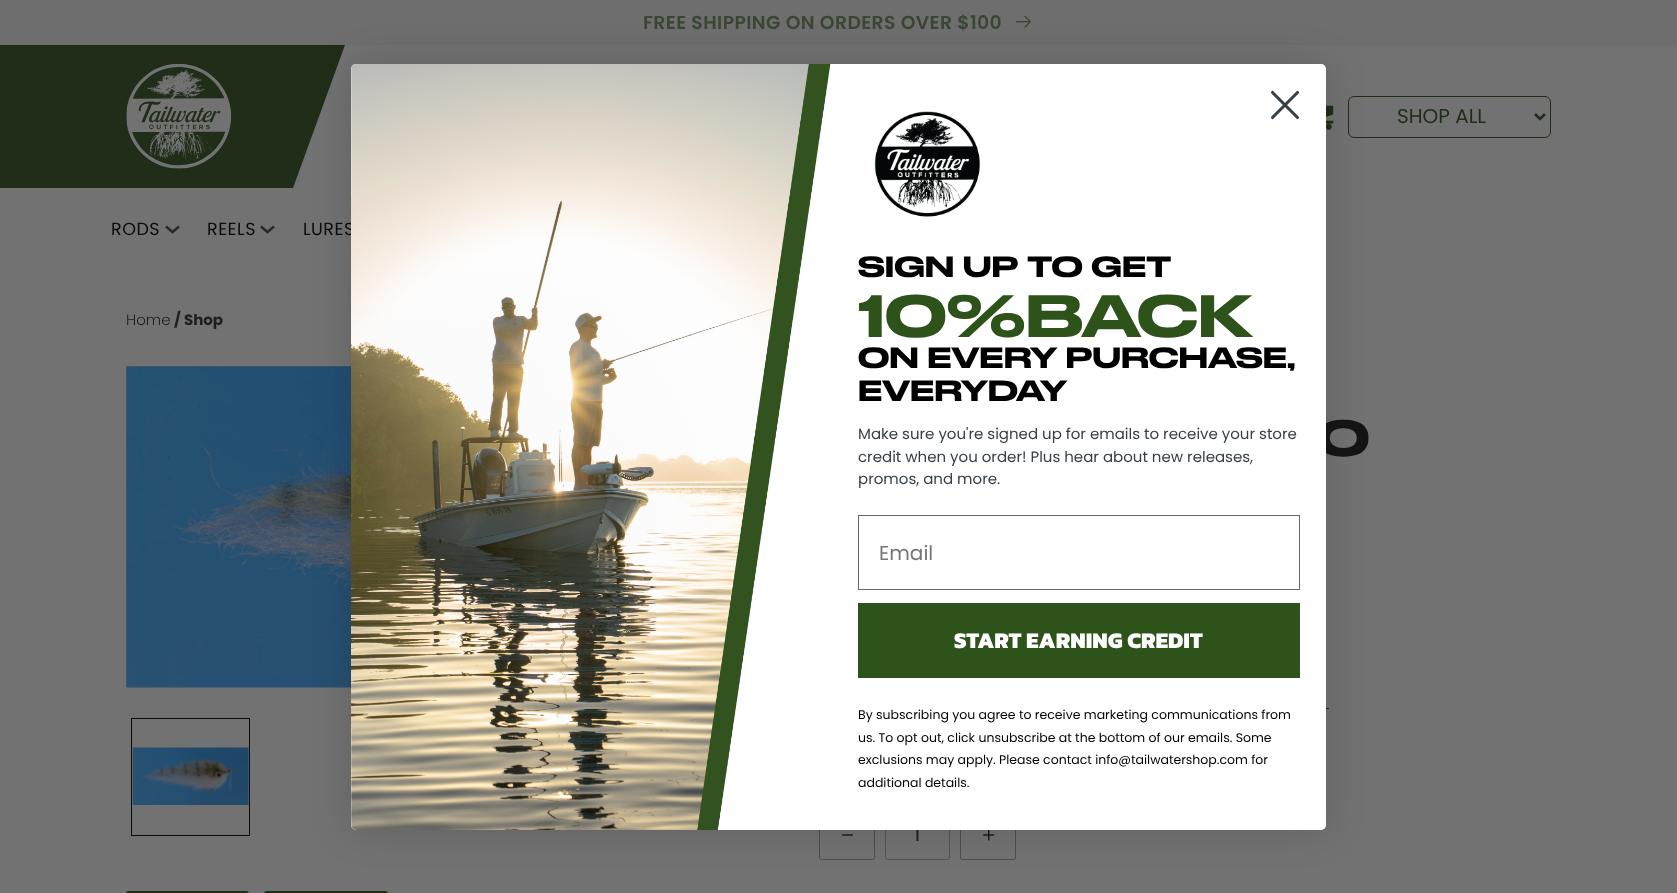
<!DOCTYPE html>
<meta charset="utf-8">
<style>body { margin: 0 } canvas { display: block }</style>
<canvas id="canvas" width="1677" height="893"></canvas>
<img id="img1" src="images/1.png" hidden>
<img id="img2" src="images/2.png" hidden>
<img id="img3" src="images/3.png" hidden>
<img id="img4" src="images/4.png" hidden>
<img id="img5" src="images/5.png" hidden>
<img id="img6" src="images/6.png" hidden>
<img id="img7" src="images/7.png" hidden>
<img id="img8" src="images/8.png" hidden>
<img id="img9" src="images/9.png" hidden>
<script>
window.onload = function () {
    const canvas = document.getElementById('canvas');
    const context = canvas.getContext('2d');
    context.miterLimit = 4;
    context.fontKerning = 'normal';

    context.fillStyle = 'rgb(114, 114, 114)';
    context.fillRect(0, 0, 1677, 893);
    context.fillStyle = 'rgb(110, 110, 110)';
    context.fillRect(0, 0, 1677, 45);
    context.drawImage(document.getElementById('img1'), 1016, 15, 15, 13);
    context.fillStyle = 'rgb(32, 46, 25)';
    context.beginPath();
    context.moveTo(-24, 45);
    context.lineTo(345, 45);
    context.lineTo(293, 188);
    context.lineTo(-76, 188);
    context.closePath();
    context.fill();
    context.drawImage(document.getElementById('img2'), 126, 64, 105, 105);
    context.drawImage(document.getElementById('img3'), 1326, 105, 8, 25);
    context.beginPath();
    context.roundRect(1348.5, 96.5, 202, 41, 5.5);
    context.strokeStyle = 'rgb(32, 46, 25)';
    context.stroke();
    context.beginPath();
    context.moveTo(1535, 114);
    context.lineTo(1540, 119);
    context.lineTo(1545, 114);
    context.lineWidth = 2.5;
    context.stroke();
    context.beginPath();
    context.moveTo(166, 226.5);
    context.lineTo(172.5, 232);
    context.lineTo(179, 226.5);
    context.strokeStyle = 'rgb(39, 42, 38)';
    context.stroke();
    context.beginPath();
    context.moveTo(261, 226.5);
    context.lineTo(267.5, 232);
    context.lineTo(274, 226.5);
    context.stroke();
    context.drawImage(document.getElementById('img4'), 126, 366, 225, 322);
    context.strokeStyle = 'rgb(12, 12, 12)';
    context.lineWidth = 1;
    context.strokeRect(131.5, 718.5, 118, 117);
    context.drawImage(document.getElementById('img5'), 132, 747, 117, 58);
    context.beginPath();
    context.roundRect(126, 891, 123, 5, 2.5);
    context.fill();
    context.beginPath();
    context.roundRect(264, 891, 124, 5, 2.5);
    context.fill();
    context.fillStyle = 'rgb(38, 38, 38)';
    context.fillRect(1326, 708, 3, 1);
    context.beginPath();
    context.roundRect(819.5, 810.5, 55, 49, 2);
    context.strokeStyle = 'rgb(74, 80, 72)';
    context.stroke();
    context.drawImage(document.getElementById('img6'), 842, 834, 11, 2);
    context.beginPath();
    context.roundRect(885.5, 810.5, 64, 49, 2);
    context.strokeStyle = 'rgb(80, 85, 78)';
    context.stroke();
    context.beginPath();
    context.roundRect(960.5, 810.5, 55, 49, 2);
    context.strokeStyle = 'rgb(74, 80, 72)';
    context.stroke();
    context.drawImage(document.getElementById('img7'), 983, 830, 12, 11);
    context.fillStyle = 'rgba(0, 0, 0, 0.15)';
    context.filter = 'blur(19px)';
    context.beginPath();
    context.roundRect(351, 64, 975, 766, 5);
    context.fill();
    context.filter = 'none';
    context.letterSpacing = '0.4px';
    context.font = '600 18.75px Poppins';
    context.fillStyle = 'rgb(58, 70, 52)';
    context.fillText('FREE SHIPPING ON ORDERS OVER $100', 643, 29);
    context.letterSpacing = '0px';
    context.font = '20px Poppins';
    context.fillStyle = 'rgb(32, 46, 25)';
    context.fillText('SHOP ALL', 1397, 123);
    context.letterSpacing = '0.5px';
    context.font = '17.5px Poppins';
    context.fillStyle = 'rgb(12, 12, 12)';
    context.fillText('RODS', 111, 235);
    context.fillText('REELS', 207, 235);
    context.fillText('LURES', 303, 235);
    context.letterSpacing = '0px';
    context.font = '300 15px Poppins';
    context.fillStyle = 'rgb(32, 32, 32)';
    context.fillText('Home', 126, 325);
    context.font = 'bold 15px Poppins';
    context.fillText('/ Shop', 174, 325);
    context.letterSpacing = '1px';
    context.font = '500 48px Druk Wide';
    context.fillStyle = 'rgb(20, 20, 20)';
    context.fillText('0', 1317, 456);
    context.letterSpacing = '0px';
    context.font = '500 17.5px Poppins';
    context.fillStyle = 'rgb(32, 32, 32)';
    context.fillText('1', 914, 841);
    context.fillStyle = 'rgb(255, 255, 255)';
    context.beginPath();
    context.roundRect(351, 64, 975, 766, 5);
    context.fill();
    context.beginPath();
    context.moveTo(1272.5, 92.5);
    context.lineTo(1297.5, 117.5);
    context.moveTo(1272.5, 117.5);
    context.lineTo(1297.5, 92.5);
    context.closePath();
    context.strokeStyle = 'rgb(55, 63, 71)';
    context.lineWidth = 3.1;
    context.lineCap = 'round';
    context.lineJoin = 'round';
    context.stroke();
    context.drawImage(document.getElementById('img8'), 351, 64, 480, 766);
    context.drawImage(document.getElementById('img9'), 874, 111, 107, 106);
    context.font = '500 27.5px Druk Wide';
    context.fillStyle = 'rgb(0, 0, 0)';
    context.fillText('SIGN UP TO GET', 858, 277);
    context.font = '500 56.25px Druk Wide';
    context.fillStyle = 'rgb(45, 82, 26)';
    context.fillText('10%BACK', 858, 337);
    context.font = '500 27.5px Druk Wide';
    context.fillStyle = 'rgb(0, 0, 0)';
    context.fillText('ON EVERY PURCHASE,', 858, 368);
    context.fillText('EVERYDAY', 858, 401);
    context.font = '15px Poppins';
    context.fillStyle = 'rgb(55, 63, 71)';
    context.fillText('Make sure you\'re signed up for emails to receive your store', 858, 439);
    context.fillText('credit when you order! Plus hear about new releases,', 858, 462);
    context.fillText('promos, and more.', 858, 484);
    context.strokeStyle = 'rgb(96, 106, 114)';
    context.lineWidth = 1;
    context.lineJoin = 'miter';
    context.strokeRect(858.5, 515.5, 441, 74);
    context.font = '20px Poppins';
    context.fillStyle = 'rgb(118, 118, 118)';
    context.fillText('Email', 879, 560);
    context.fillStyle = 'rgb(45, 82, 26)';
    context.fillRect(858, 603, 442, 75);
    context.font = '800 22.5px Kanit';
    context.fillStyle = 'rgb(255, 255, 255)';
    context.fillText('START EARNING CREDIT', 954, 648);
    context.font = '12.5px Poppins';
    context.fillStyle = 'rgb(0, 0, 0)';
    context.fillText('By subscribing you agree to receive marketing communications from', 858, 719);
    context.fillText('us. To opt out, click unsubscribe at the bottom of our emails. Some', 858, 742);
    context.fillText('exclusions may apply. Please contact info@tailwatershop.com for', 858, 764);
    context.fillText('additional details.', 858, 787);
};
</script>
